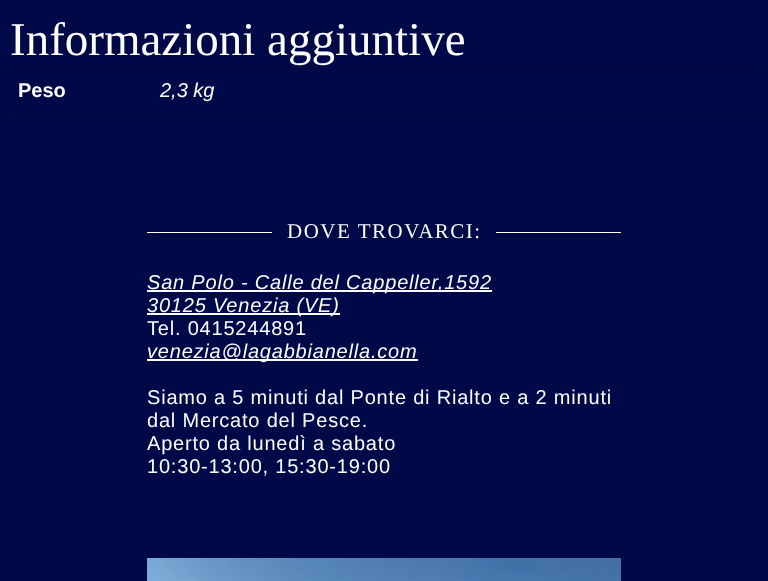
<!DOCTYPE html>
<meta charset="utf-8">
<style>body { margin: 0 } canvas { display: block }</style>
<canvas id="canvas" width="768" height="581"></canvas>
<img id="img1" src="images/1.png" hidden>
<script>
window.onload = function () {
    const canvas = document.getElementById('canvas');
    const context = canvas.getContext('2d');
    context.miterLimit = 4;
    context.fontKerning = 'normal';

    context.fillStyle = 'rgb(0, 9, 71)';
    context.fillRect(0, 0, 768, 581);
    context.fillStyle = 'rgb(0, 8, 64)';
    context.fillRect(10, 113, 749, 1);
    context.fillRect(10, 66, 748, 1);
    context.fillStyle = 'rgb(0, 7, 58)';
    context.fillRect(160, 113, 1, 1);
    context.fillStyle = 'rgb(255, 255, 255)';
    context.fillRect(147, 232, 125, 1);
    context.fillRect(496, 232, 125, 1);
    context.fillStyle = 'rgb(252, 252, 252)';
    context.fillRect(147, 290, 345, 2);
    context.fillRect(147, 313, 193, 2);
    context.fillRect(147, 359, 271, 2);
    context.drawImage(document.getElementById('img1'), 147, 558, 474, 23);
    context.font = '47px Liberation Serif';
    context.fillText('Informazioni aggiuntive', 10, 55);
    context.font = 'bold 20px Liberation Sans';
    context.fillText('Peso', 18, 97);
    context.font = 'italic 20px Liberation Sans';
    context.fillText('2,3 kg', 160, 97);
    context.letterSpacing = '1.5px';
    context.font = '21px Liberation Serif';
    context.fillText('DOVE TROVARCI:', 287, 238);
    context.letterSpacing = '0.8px';
    context.font = 'italic 20px Liberation Sans';
    context.fillText('San Polo - Calle del Cappeller,1592', 147, 289);
    context.fillText('30125 Venezia (VE)', 147, 312);
    context.font = '20px Liberation Sans';
    context.fillText('Tel. 0415244891', 147, 335);
    context.font = 'italic 20px Liberation Sans';
    context.fillText('venezia@lagabbianella.com', 147, 358);
    context.font = '20px Liberation Sans';
    context.fillText('Siamo a 5 minuti dal Ponte di Rialto e a 2 minuti', 147, 404);
    context.fillText('dal Mercato del Pesce.', 147, 427);
    context.fillText('Aperto da lunedì a sabato', 147, 450);
    context.fillText('10:30-13:00, 15:30-19:00', 147, 473);
};
</script>
